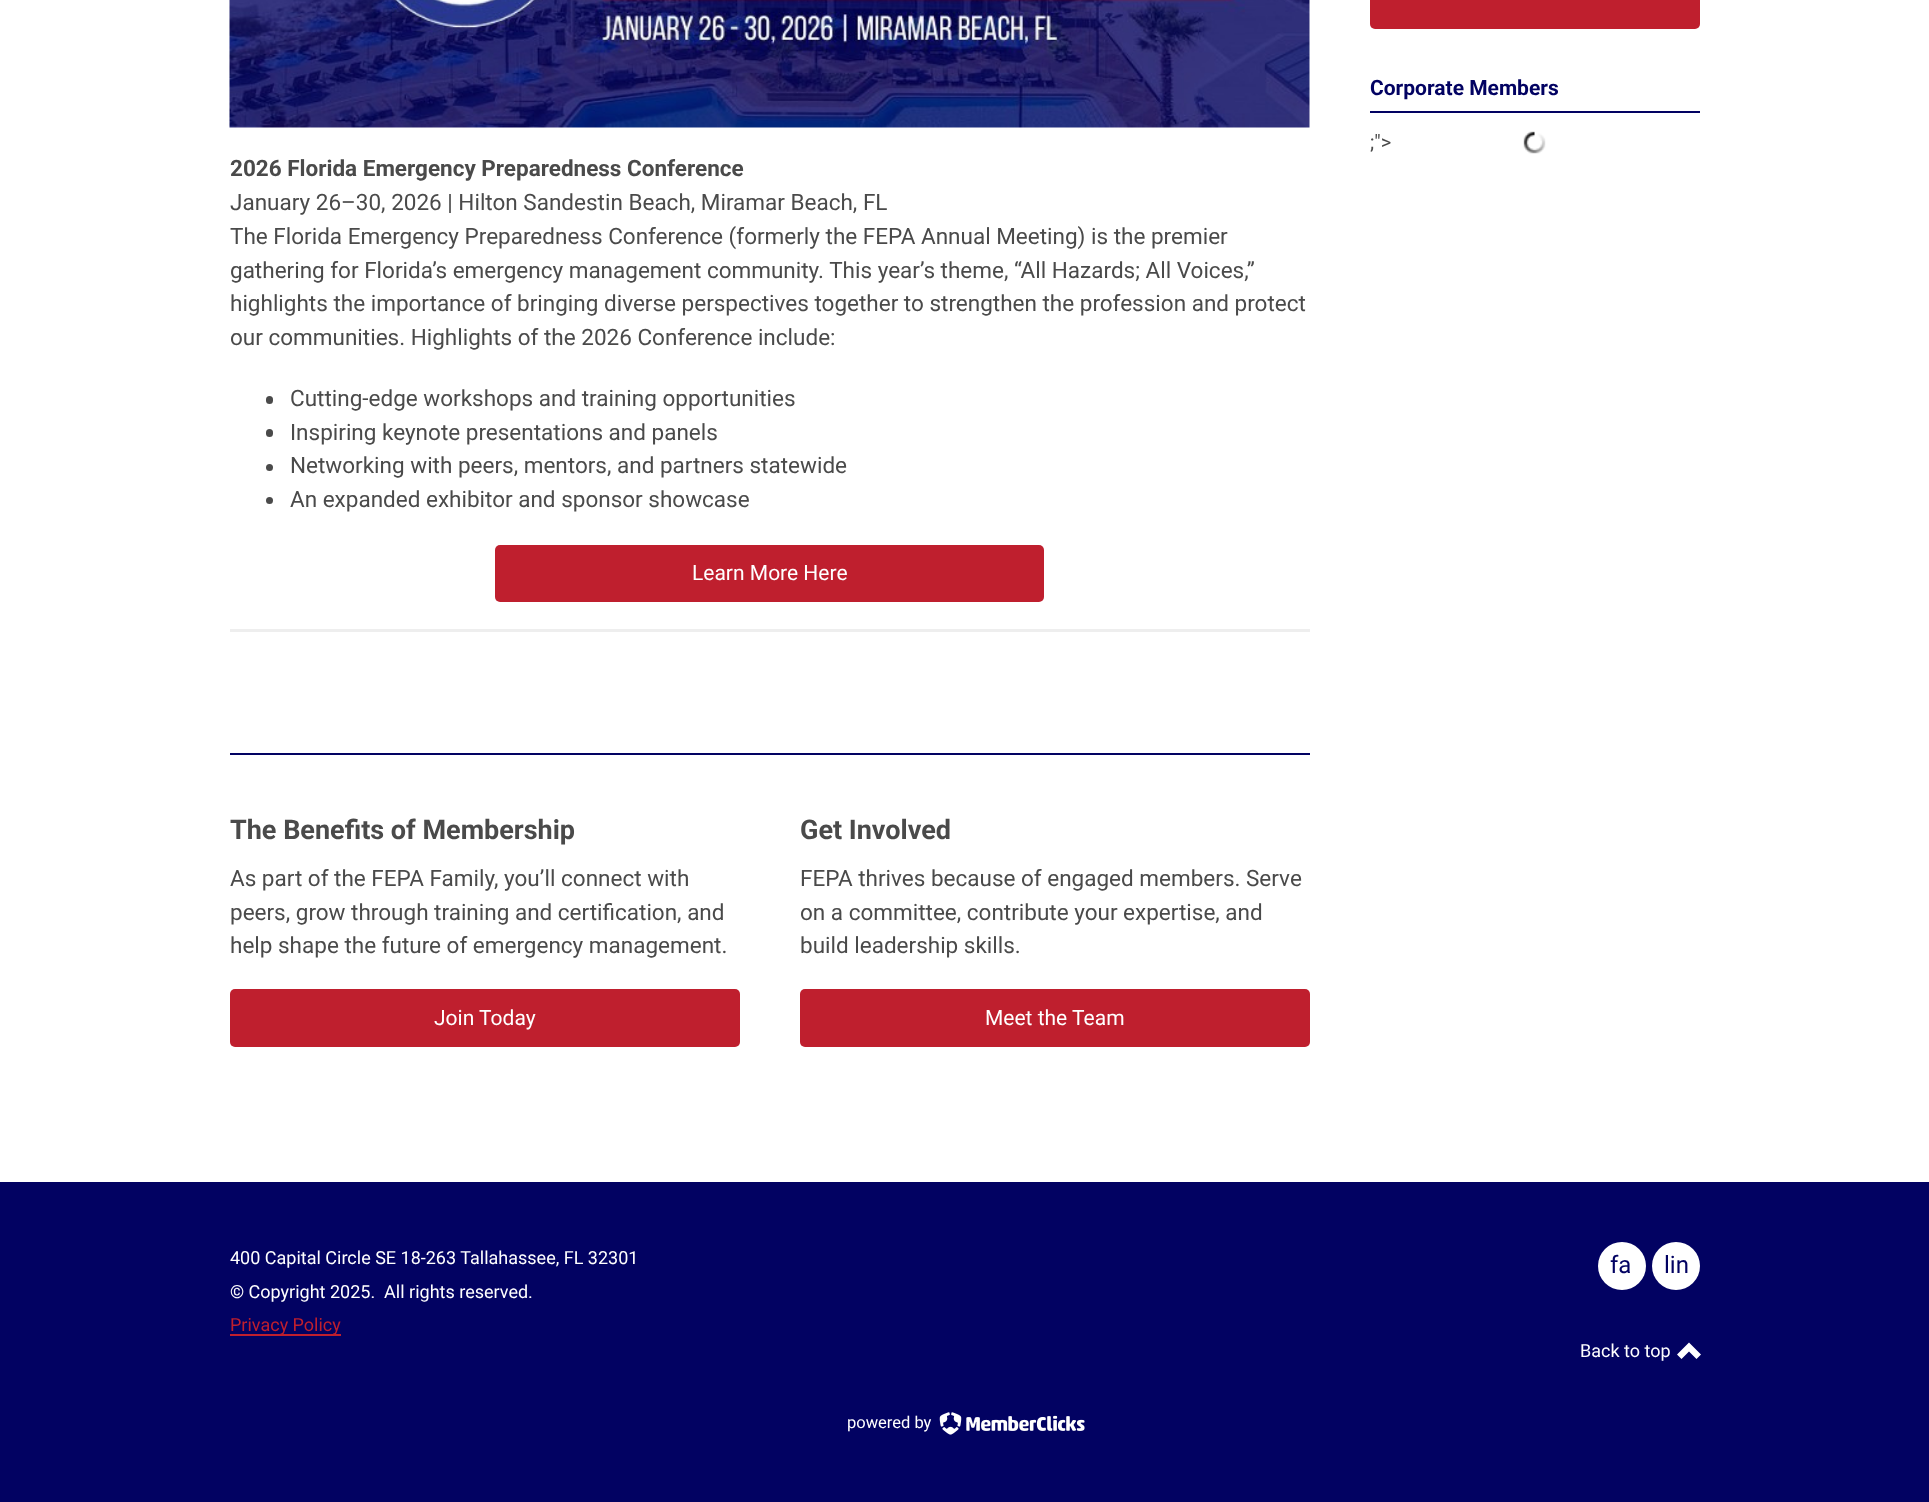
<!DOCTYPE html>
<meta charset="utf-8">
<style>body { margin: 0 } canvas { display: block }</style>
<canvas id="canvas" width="1929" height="1502"></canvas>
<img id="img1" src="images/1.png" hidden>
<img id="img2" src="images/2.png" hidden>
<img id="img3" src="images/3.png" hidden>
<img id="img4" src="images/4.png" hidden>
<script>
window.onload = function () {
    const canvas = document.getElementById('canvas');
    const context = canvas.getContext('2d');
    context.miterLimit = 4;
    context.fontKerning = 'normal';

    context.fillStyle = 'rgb(255, 255, 255)';
    context.fillRect(0, 0, 1929, 1502);
    context.fillStyle = 'rgb(191, 31, 46)';
    context.beginPath();
    context.roundRect(1370, -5, 330, 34, 5);
    context.fill();
    context.fillStyle = 'rgb(2, 2, 98)';
    context.fillRect(1370, 111, 330, 2);
    context.drawImage(document.getElementById('img1'), 1523, 131, 23, 23);
    context.fillRect(230, 753, 1080, 2);
    context.drawImage(document.getElementById('img2'), 229, 0, 1081, 128);
    context.fillStyle = 'rgb(74, 74, 74)';
    context.beginPath();
    context.roundRect(266, 396, 7, 8, 3.5);
    context.fill();
    context.beginPath();
    context.roundRect(266, 429, 7, 8, 3.5);
    context.fill();
    context.beginPath();
    context.arc(269.5, 467.5, 3.5, 0, 2 * Math.PI);
    context.fill();
    context.beginPath();
    context.arc(269.5, 500.5, 3.5, 0, 2 * Math.PI);
    context.fill();
    context.fillStyle = 'rgb(191, 31, 46)';
    context.beginPath();
    context.roundRect(495, 545, 549, 57, 5);
    context.fill();
    context.fillStyle = 'rgb(238, 238, 238)';
    context.fillRect(230, 629, 1080, 3);
    context.fillStyle = 'rgb(191, 31, 46)';
    context.beginPath();
    context.roundRect(230, 989, 510, 58, 5);
    context.fill();
    context.beginPath();
    context.roundRect(800, 989, 510, 58, 5);
    context.fill();
    context.fillStyle = 'rgb(2, 2, 98)';
    context.fillRect(0, 1182, 1929, 320);
    context.fillStyle = 'rgb(191, 31, 46)';
    context.fillRect(230, 1334, 111, 2);
    context.fillStyle = 'rgb(255, 255, 255)';
    context.beginPath();
    context.arc(1622, 1266, 24, 0, 2 * Math.PI);
    context.fill();
    context.beginPath();
    context.arc(1676, 1266, 24, 0, 2 * Math.PI);
    context.fill();
    context.beginPath();
    context.moveTo(1677, 1354.5);
    context.lineTo(1681.5, 1359);
    context.lineTo(1689, 1351.5);
    context.lineTo(1696.5, 1359);
    context.lineTo(1701, 1354.5);
    context.lineTo(1689, 1342.5);
    context.closePath();
    context.fill();
    context.drawImage(document.getElementById('img3'), 939, 1412, 23, 23);
    context.drawImage(document.getElementById('img4'), 966, 1415, 119, 16);
    context.font = 'bold 21px Roboto';
    context.fillStyle = 'rgb(2, 2, 98)';
    context.fillText('Corporate Members', 1370, 95);
    context.font = '20px Roboto';
    context.fillStyle = 'rgb(74, 74, 74)';
    context.fillText(';">', 1370, 149);
    context.font = 'bold 22.5px Roboto';
    context.fillText('2026 Florida Emergency Preparedness Conference', 230, 176);
    context.font = '22.5px Roboto';
    context.fillText('January 26–30, 2026 | Hilton Sandestin Beach, Miramar Beach, FL', 230, 210);
    context.fillText('The Florida Emergency Preparedness Conference (formerly the FEPA Annual Meeting) is the premier', 230, 244);
    context.fillText('gathering for Florida’s emergency management community. This year’s theme, “All Hazards; All Voices,”', 230, 278);
    context.fillText('highlights the importance of bringing diverse perspectives together to strengthen the profession and protect', 230, 311);
    context.fillText('our communities. Highlights of the 2026 Conference include:', 230, 345);
    context.fillText('Cutting-edge workshops and training opportunities', 290, 406);
    context.fillText('Inspiring keynote presentations and panels', 290, 440);
    context.fillText('Networking with peers, mentors, and partners statewide', 290, 473);
    context.fillText('An expanded exhibitor and sponsor showcase', 290, 507);
    context.font = '21px Roboto';
    context.fillStyle = 'rgb(255, 255, 255)';
    context.fillText('Learn More Here', 692, 580);
    context.font = 'bold 27px Roboto';
    context.fillStyle = 'rgb(74, 74, 74)';
    context.fillText('The Benefits of Membership', 230, 839);
    context.font = '22.5px Roboto';
    context.fillText('As part of the FEPA Family, you’ll connect with', 230, 886);
    context.fillText('peers, grow through training and certification, and', 230, 920);
    context.fillText('help shape the future of emergency management.', 230, 953);
    context.font = '21px Roboto';
    context.fillStyle = 'rgb(255, 255, 255)';
    context.fillText('Join Today', 434, 1025);
    context.font = 'bold 27px Roboto';
    context.fillStyle = 'rgb(74, 74, 74)';
    context.fillText('Get Involved', 800, 839);
    context.font = '22.5px Roboto';
    context.fillText('FEPA thrives because of engaged members. Serve', 800, 886);
    context.fillText('on a committee, contribute your expertise, and', 800, 920);
    context.fillText('build leadership skills.', 800, 953);
    context.font = '21px Roboto';
    context.fillStyle = 'rgb(255, 255, 255)';
    context.fillText('Meet the Team', 985, 1025);
    context.font = '18px Roboto';
    context.fillText('400 Capital Circle SE 18-263 Tallahassee, FL 32301', 230, 1264);
    context.fillText('© Copyright 2025.  All rights reserved.', 230, 1298);
    context.fillStyle = 'rgb(191, 31, 46)';
    context.fillText('Privacy Policy', 230, 1331);
    context.font = '24px Roboto';
    context.fillStyle = 'rgb(2, 2, 98)';
    context.fillText('fa', 1610, 1273);
    context.fillText('lin', 1664, 1273);
    context.font = '18px Roboto';
    context.fillStyle = 'rgb(255, 255, 255)';
    context.fillText('Back to top', 1580, 1357);
    context.font = '16.5px Roboto';
    context.fillText('powered by', 847, 1428);
};
</script>
